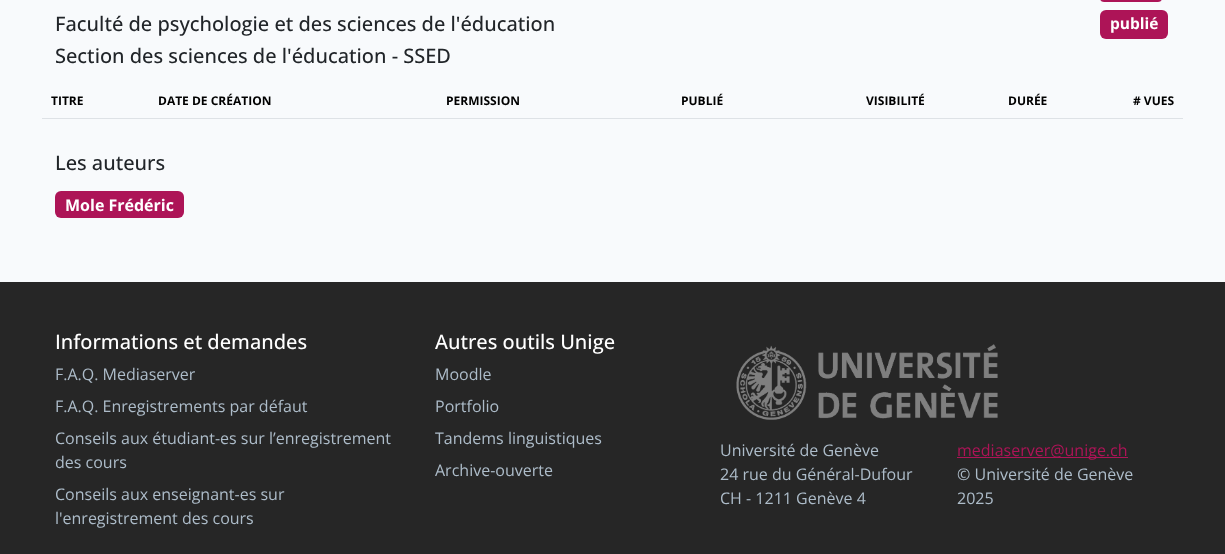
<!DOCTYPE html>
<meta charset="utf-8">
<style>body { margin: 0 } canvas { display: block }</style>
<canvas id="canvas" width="1225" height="554"></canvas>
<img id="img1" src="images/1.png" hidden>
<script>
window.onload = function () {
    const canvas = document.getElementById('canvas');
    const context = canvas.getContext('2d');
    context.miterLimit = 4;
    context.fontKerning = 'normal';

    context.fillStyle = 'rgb(248, 250, 252)';
    context.fillRect(0, 0, 1225, 554);
    context.fillStyle = 'rgb(173, 20, 87)';
    context.beginPath();
    context.roundRect(1100, -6, 62, 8, 6);
    context.fill();
    context.beginPath();
    context.roundRect(1100, 10, 68, 29, 6);
    context.fill();
    context.fillStyle = 'rgb(222, 226, 230)';
    context.fillRect(42, 118, 1141, 1);
    context.fillStyle = 'rgb(173, 20, 87)';
    context.beginPath();
    context.roundRect(55, 191, 129, 27, 6);
    context.fill();
    context.fillStyle = 'rgb(38, 38, 38)';
    context.fillRect(0, 282, 1225, 272);
    context.drawImage(document.getElementById('img1'), 736, 344, 262, 76);
    context.fillStyle = 'rgb(173, 20, 87)';
    context.fillRect(957, 457, 171, 1);
    context.font = '500 20px Open Sans';
    context.fillStyle = 'rgb(33, 37, 41)';
    context.fillText('Faculté de psychologie et des sciences de l\'éducation', 55, 31);
    context.fillText('Section des sciences de l\'éducation - SSED', 55, 63);
    context.font = 'bold 15.5px Open Sans';
    context.fillStyle = 'rgb(255, 255, 255)';
    context.fillText('publié', 1110, 29);
    context.font = 'bold 12px Open Sans';
    context.fillStyle = 'rgb(0, 0, 0)';
    context.fillText('TITRE', 51, 105);
    context.fillText('DATE DE CRÉATION', 158, 105);
    context.fillText('PERMISSION', 446, 105);
    context.fillText('PUBLIÉ', 681, 105);
    context.fillText('VISIBILITÉ', 866, 105);
    context.fillText('DURÉE', 1008, 105);
    context.fillText('# VUES', 1133, 105);
    context.font = '500 20px Open Sans';
    context.fillStyle = 'rgb(33, 37, 41)';
    context.fillText('Les auteurs', 55, 170);
    context.font = 'bold 16px Open Sans';
    context.fillStyle = 'rgb(255, 255, 255)';
    context.fillText('Mole Frédéric', 65, 211);
    context.font = '500 20px Open Sans';
    context.fillText('Informations et demandes', 55, 349);
    context.font = '16px Open Sans';
    context.fillStyle = 'rgb(173, 188, 201)';
    context.fillText('F.A.Q. Mediaserver', 55, 380);
    context.fillText('F.A.Q. Enregistrements par défaut', 55, 412);
    context.fillText('Conseils aux étudiant-es sur l’enregistrement', 55, 444);
    context.fillText('des cours', 55, 468);
    context.fillText('Conseils aux enseignant-es sur', 55, 500);
    context.fillText('l\'enregistrement des cours', 55, 524);
    context.font = '500 20px Open Sans';
    context.fillStyle = 'rgb(255, 255, 255)';
    context.fillText('Autres outils Unige', 435, 349);
    context.font = '16px Open Sans';
    context.fillStyle = 'rgb(173, 188, 201)';
    context.fillText('Moodle', 435, 380);
    context.fillText('Portfolio', 435, 412);
    context.fillText('Tandems linguistiques', 435, 444);
    context.fillText('Archive-ouverte', 435, 476);
    context.fillText('Université de Genève', 720, 456);
    context.fillText('24 rue du Général-Dufour', 720, 480);
    context.fillText('CH - 1211 Genève 4', 720, 504);
    context.fillStyle = 'rgb(173, 20, 87)';
    context.fillText('mediaserver@unige.ch', 957, 456);
    context.fillStyle = 'rgb(173, 188, 201)';
    context.fillText('© Université de Genève', 957, 480);
    context.fillText('2025', 957, 504);
};
</script>
